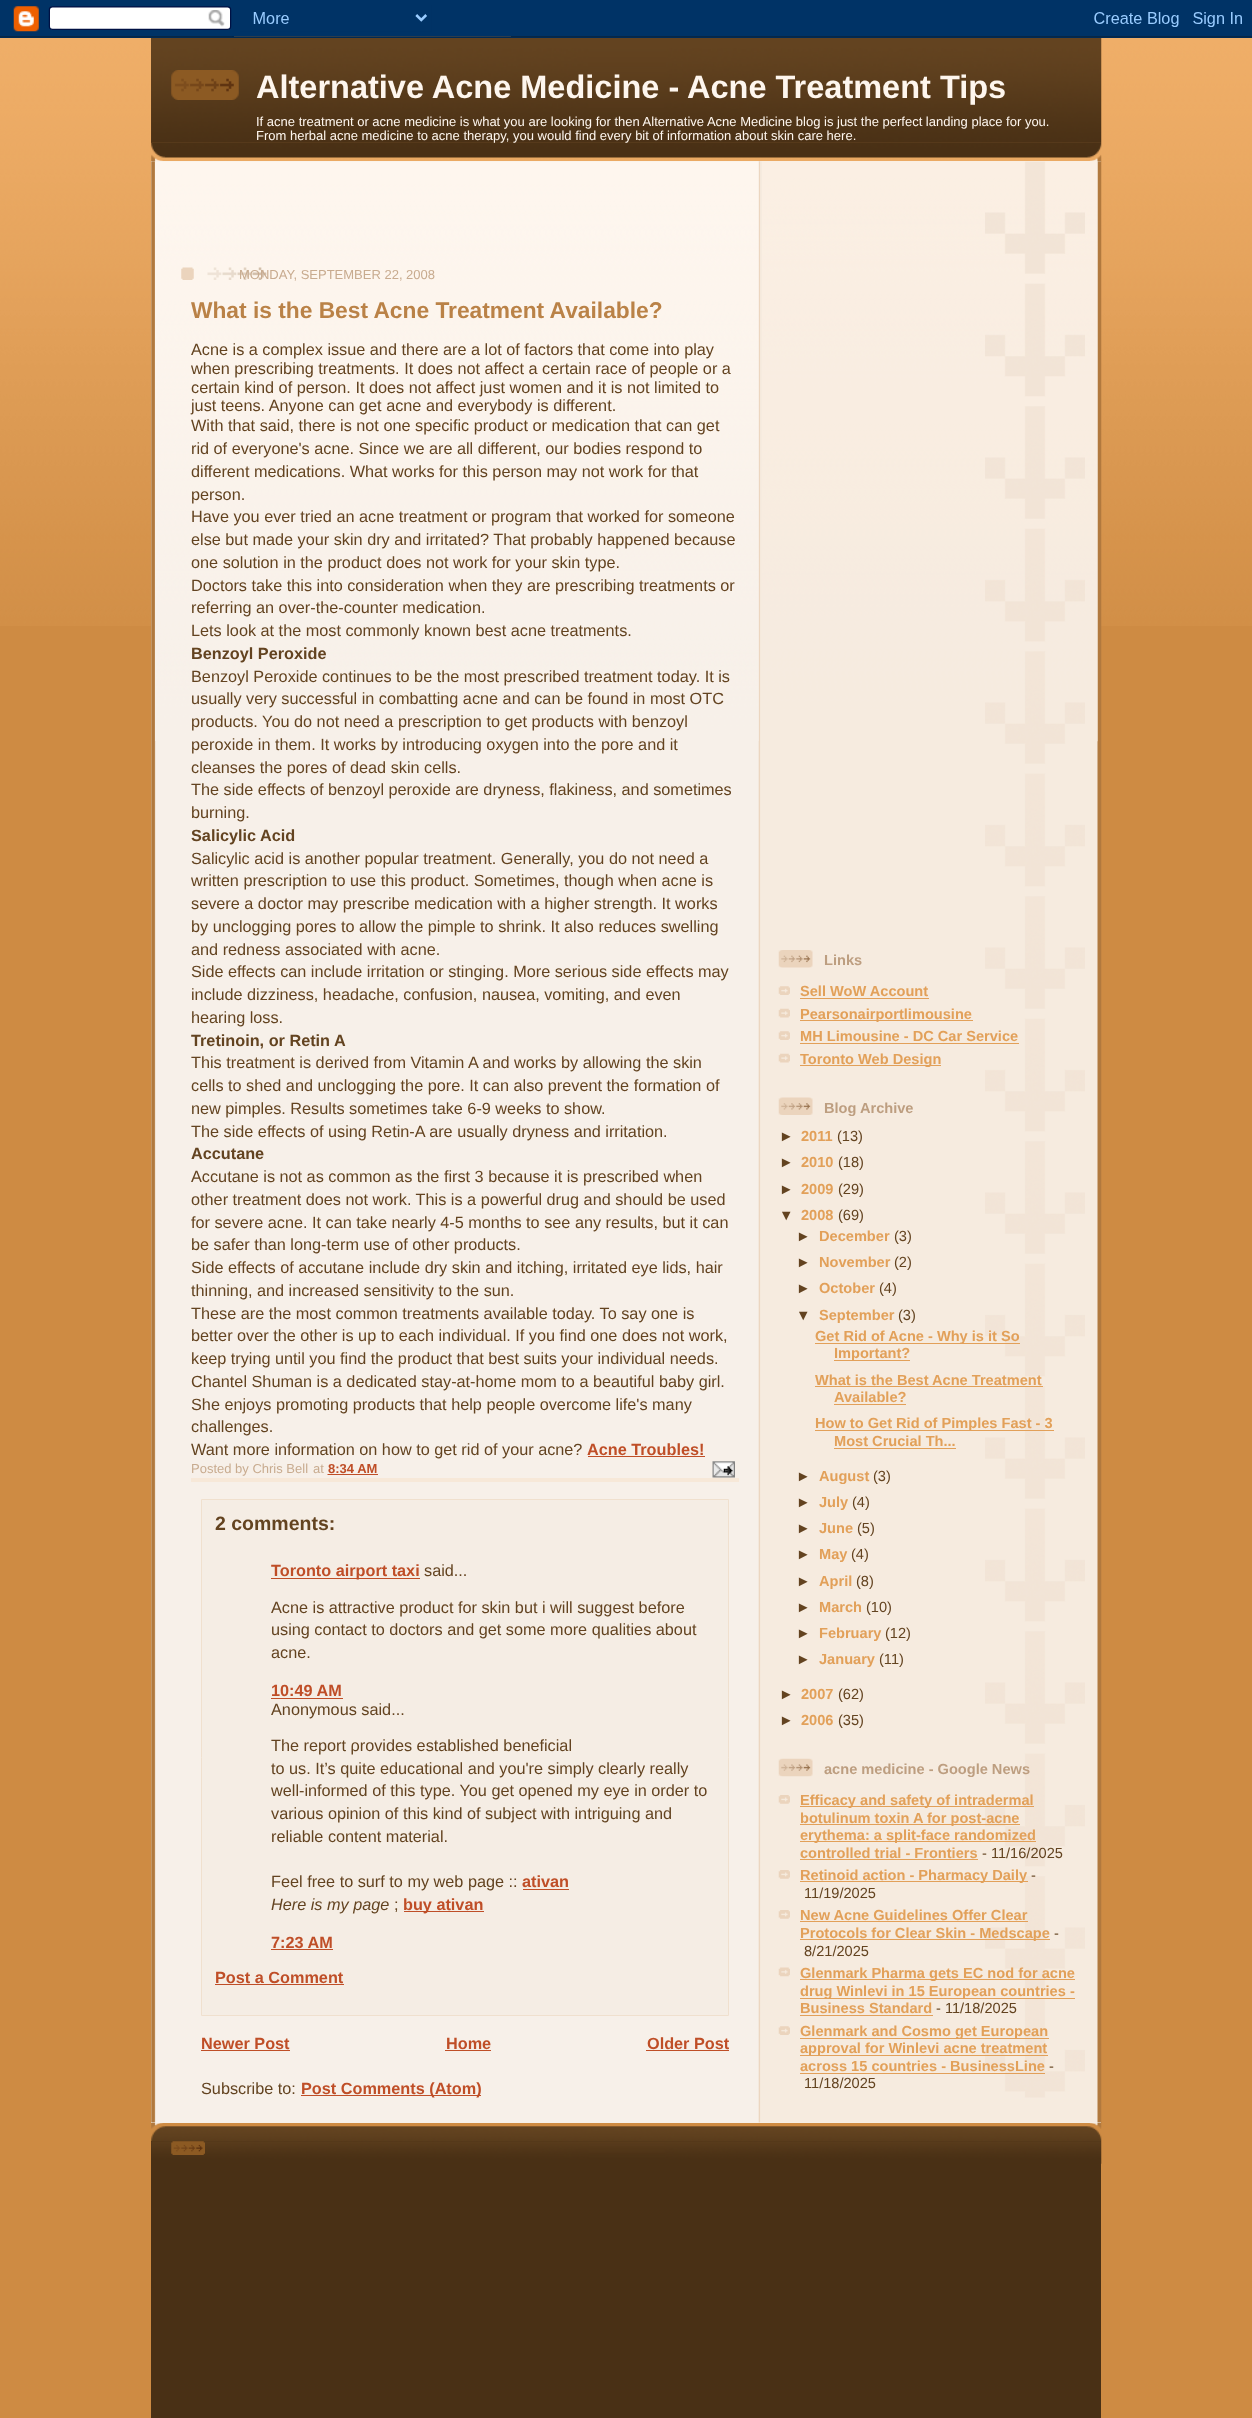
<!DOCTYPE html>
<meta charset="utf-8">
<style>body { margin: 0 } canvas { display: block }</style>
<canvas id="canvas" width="1252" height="2418"></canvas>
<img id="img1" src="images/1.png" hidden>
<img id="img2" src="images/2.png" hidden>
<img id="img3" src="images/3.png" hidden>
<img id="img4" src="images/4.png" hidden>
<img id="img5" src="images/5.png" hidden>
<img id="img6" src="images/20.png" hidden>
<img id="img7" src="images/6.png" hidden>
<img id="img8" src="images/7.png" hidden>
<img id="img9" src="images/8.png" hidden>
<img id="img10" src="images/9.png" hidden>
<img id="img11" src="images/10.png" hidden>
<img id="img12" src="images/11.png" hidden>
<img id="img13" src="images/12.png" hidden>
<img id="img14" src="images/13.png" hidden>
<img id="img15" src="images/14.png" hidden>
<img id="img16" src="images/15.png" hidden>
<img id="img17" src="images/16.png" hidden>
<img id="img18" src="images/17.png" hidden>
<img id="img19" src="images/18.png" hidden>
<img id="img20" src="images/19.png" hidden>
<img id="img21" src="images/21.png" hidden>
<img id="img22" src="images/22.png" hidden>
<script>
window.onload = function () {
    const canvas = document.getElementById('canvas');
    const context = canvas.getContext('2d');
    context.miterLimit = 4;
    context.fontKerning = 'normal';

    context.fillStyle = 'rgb(206, 139, 67)';
    context.fillRect(0, 0, 1252, 2418);
    context.drawImage(document.getElementById('img1'), 0, 36, 1252, 590);
    context.drawImage(document.getElementById('img2'), 0, 0, 1252, 38);
    context.drawImage(document.getElementById('img3'), 151, 142, 951, 20);
    context.fillStyle = 'rgb(99, 67, 32)';
    context.fillRect(151, 38, 950, 105);
    context.drawImage(document.getElementById('img4'), 151, 38, 951, 105);
    context.drawImage(document.getElementById('img5'), 171, 70, 68, 30);
    context.drawImage(document.getElementById('img6'), 151, 2122, 951, 20);
    context.fillStyle = 'rgb(247, 240, 233)';
    context.fillRect(151, 161, 950, 1962);
    context.drawImage(document.getElementById('img7'), 151, 161, 951, 1962);
    context.drawImage(document.getElementById('img8'), 155, 161, 604, 580);
    context.drawImage(document.getElementById('img9'), 181, 267, 13, 13);
    context.drawImage(document.getElementById('img10'), 207, 267, 60, 13);
    context.fillStyle = 'rgb(247, 232, 216)';
    context.fillRect(191, 1478, 548, 4);
    context.fillStyle = 'rgb(191, 78, 39)';
    context.fillRect(588, 1456, 117, 1);
    context.beginPath();
    context.moveTo(327.5, 1474.5);
    context.lineTo(377, 1474.5);
    context.strokeStyle = 'rgb(191, 78, 39)';
    context.lineWidth = 1.2;
    context.setLineDash([1.25, 1.25]);
    context.stroke();
    context.fillRect(328, 1474, 50, 1);
    context.drawImage(document.getElementById('img11'), 712, 1461, 23, 17);
    context.fillStyle = 'rgb(245, 237, 228)';
    context.beginPath();
    context.rect(201.5, 1499.5, 527, 516);
    context.fill();
    context.strokeStyle = 'rgb(240, 224, 206)';
    context.lineWidth = 1;
    context.setLineDash([]);
    context.stroke();
    context.fillStyle = 'rgb(191, 78, 39)';
    context.fillRect(271, 1578, 149, 1);
    context.fillRect(271, 1698, 72, 1);
    context.fillRect(523, 1889, 46, 1);
    context.fillRect(404, 1911, 80, 1);
    context.fillRect(271, 1949, 62, 1);
    context.fillRect(215, 1984, 129, 1);
    context.fillRect(201, 2050, 89, 1);
    context.fillRect(445, 2050, 46, 1);
    context.fillRect(646, 2050, 83, 1);
    context.fillRect(301, 2095, 180, 1);
    context.drawImage(document.getElementById('img12'), 762, 161, 336, 581);
    context.drawImage(document.getElementById('img13'), 985, 161, 100, 1937);
    context.drawImage(document.getElementById('img14'), 778, 950, 35, 18);
    context.drawImage(document.getElementById('img15'), 778, 986, 12, 9);
    context.fillStyle = 'rgb(226, 160, 89)';
    context.fillRect(800, 998, 129, 1);
    context.drawImage(document.getElementById('img16'), 778, 1008, 12, 10);
    context.fillRect(800, 1020, 173, 1);
    context.drawImage(document.getElementById('img15'), 778, 1031, 12, 9);
    context.fillRect(800, 1043, 219, 1);
    context.drawImage(document.getElementById('img16'), 778, 1053, 12, 10);
    context.fillRect(800, 1065, 141, 1);
    context.drawImage(document.getElementById('img17'), 778, 1097, 35, 18);
    context.fillRect(815, 1343, 205, 1);
    context.fillRect(834, 1360, 76, 1);
    context.fillRect(815, 1386, 228, 1);
    context.fillRect(834, 1404, 72, 1);
    context.fillRect(815, 1430, 239, 1);
    context.fillRect(834, 1448, 122, 1);
    context.drawImage(document.getElementById('img18'), 778, 1758, 35, 19);
    context.drawImage(document.getElementById('img19'), 778, 1795, 12, 9);
    context.fillRect(800, 1806, 234, 1);
    context.fillRect(800, 1824, 220, 1);
    context.fillRect(800, 1841, 236, 1);
    context.fillRect(800, 1859, 178, 1);
    context.drawImage(document.getElementById('img19'), 778, 1870, 12, 9);
    context.fillRect(800, 1881, 228, 1);
    context.drawImage(document.getElementById('img19'), 778, 1910, 12, 9);
    context.fillRect(800, 1921, 228, 1);
    context.fillRect(800, 1939, 250, 1);
    context.drawImage(document.getElementById('img20'), 778, 1967, 12, 10);
    context.fillRect(800, 1979, 275, 1);
    context.fillRect(800, 1998, 275, 1);
    context.fillRect(800, 2015, 133, 1);
    context.drawImage(document.getElementById('img15'), 778, 2026, 12, 9);
    context.fillRect(800, 2038, 249, 1);
    context.fillRect(800, 2055, 248, 1);
    context.fillRect(800, 2073, 245, 1);
    context.fillStyle = 'rgb(73, 48, 21)';
    context.fillRect(151, 2141, 950, 277);
    context.drawImage(document.getElementById('img21'), 151, 2141, 951, 23);
    context.drawImage(document.getElementById('img22'), 171, 2141, 34, 14);
    context.font = 'bold 32.5px Liberation Sans';
    context.fillStyle = 'rgb(254, 246, 238)';
    context.fillText('Alternative Acne Medicine - Acne Treatment Tips', 256, 98);
    context.font = '13px Liberation Sans';
    context.fillText('If acne treatment or acne medicine is what you are looking for then Alternative Acne Medicine blog is just the perfect landing place for you.', 256, 126);
    context.fillText('From herbal acne medicine to acne therapy, you would find every bit of information about skin care here.', 256, 140);
    context.fillStyle = 'rgb(200, 171, 143)';
    context.fillText('MONDAY, SEPTEMBER 22, 2008', 239, 279);
    context.font = 'bold 22.75px Liberation Sans';
    context.fillStyle = 'rgb(186, 130, 71)';
    context.fillText('What is the Best Acne Treatment Available?', 191, 318);
    context.font = '16.25px Liberation Sans';
    context.fillStyle = 'rgb(99, 67, 32)';
    context.fillText('Acne is a complex issue and there are a lot of factors that come into play', 191, 355);
    context.fillText('when prescribing treatments. It does not affect a certain race of people or a', 191, 374);
    context.fillText('certain kind of person. It does not affect just women and it is not limited to', 191, 393);
    context.fillText('just teens. Anyone can get acne and everybody is different.', 191, 411);
    context.fillText('With that said, there is not one specific product or medication that can get', 191, 431);
    context.fillText('rid of everyone\'s acne. Since we are all different, our bodies respond to', 191, 454);
    context.fillText('different medications. What works for this person may not work for that', 191, 477);
    context.fillText('person.', 191, 500);
    context.fillText('Have you ever tried an acne treatment or program that worked for someone', 191, 522);
    context.fillText('else but made your skin dry and irritated? That probably happened because', 191, 545);
    context.fillText('one solution in the product does not work for your skin type.', 191, 568);
    context.fillText('Doctors take this into consideration when they are prescribing treatments or', 191, 591);
    context.fillText('referring an over-the-counter medication.', 191, 613);
    context.fillText('Lets look at the most commonly known best acne treatments.', 191, 636);
    context.font = 'bold 16.25px Liberation Sans';
    context.fillText('Benzoyl Peroxide', 191, 659);
    context.font = '16.25px Liberation Sans';
    context.fillText('Benzoyl Peroxide continues to be the most prescribed treatment today. It is', 191, 682);
    context.fillText('usually very successful in combatting acne and can be found in most OTC', 191, 704);
    context.fillText('products. You do not need a prescription to get products with benzoyl', 191, 727);
    context.fillText('peroxide in them. It works by introducing oxygen into the pore and it', 191, 750);
    context.fillText('cleanses the pores of dead skin cells.', 191, 773);
    context.fillText('The side effects of benzoyl peroxide are dryness, flakiness, and sometimes', 191, 795);
    context.fillText('burning.', 191, 818);
    context.font = 'bold 16.25px Liberation Sans';
    context.fillText('Salicylic Acid', 191, 841);
    context.font = '16.25px Liberation Sans';
    context.fillText('Salicylic acid is another popular treatment. Generally, you do not need a', 191, 864);
    context.fillText('written prescription to use this product. Sometimes, though when acne is', 191, 886);
    context.fillText('severe a doctor may prescribe medication with a higher strength. It works', 191, 909);
    context.fillText('by unclogging pores to allow the pimple to shrink. It also reduces swelling', 191, 932);
    context.fillText('and redness associated with acne.', 191, 955);
    context.fillText('Side effects can include irritation or stinging. More serious side effects may', 191, 977);
    context.fillText('include dizziness, headache, confusion, nausea, vomiting, and even', 191, 1000);
    context.fillText('hearing loss.', 191, 1023);
    context.font = 'bold 16.25px Liberation Sans';
    context.fillText('Tretinoin, or Retin A', 191, 1046);
    context.font = '16.25px Liberation Sans';
    context.fillText('This treatment is derived from Vitamin A and works by allowing the skin', 191, 1068);
    context.fillText('cells to shed and unclogging the pore. It can also prevent the formation of', 191, 1091);
    context.fillText('new pimples. Results sometimes take 6-9 weeks to show.', 191, 1114);
    context.fillText('The side effects of using Retin-A are usually dryness and irritation.', 191, 1137);
    context.font = 'bold 16.25px Liberation Sans';
    context.fillText('Accutane', 191, 1159);
    context.font = '16.25px Liberation Sans';
    context.fillText('Accutane is not as common as the first 3 because it is prescribed when', 191, 1182);
    context.fillText('other treatment does not work. This is a powerful drug and should be used', 191, 1205);
    context.fillText('for severe acne. It can take nearly 4-5 months to see any results, but it can', 191, 1228);
    context.fillText('be safer than long-term use of other products.', 191, 1250);
    context.fillText('Side effects of accutane include dry skin and itching, irritated eye lids, hair', 191, 1273);
    context.fillText('thinning, and increased sensitivity to the sun.', 191, 1296);
    context.fillText('These are the most common treatments available today. To say one is', 191, 1319);
    context.fillText('better over the other is up to each individual. If you find one does not work,', 191, 1341);
    context.fillText('keep trying until you find the product that best suits your individual needs.', 191, 1364);
    context.fillText('Chantel Shuman is a dedicated stay-at-home mom to a beautiful baby girl.', 191, 1387);
    context.fillText('She enjoys promoting products that help people overcome life\'s many', 191, 1410);
    context.fillText('challenges.', 191, 1432);
    context.fillText('Want more information on how to get rid of your acne?', 191, 1455);
    context.font = 'bold 16.25px Liberation Sans';
    context.fillStyle = 'rgb(191, 78, 39)';
    context.fillText('Acne Troubles!', 587, 1455);
    context.font = '13px Liberation Sans';
    context.fillStyle = 'rgb(200, 171, 143)';
    context.fillText('Posted by Chris Bell', 191, 1473);
    context.fillText('at', 313, 1473);
    context.font = 'bold 13px Liberation Sans';
    context.fillStyle = 'rgb(191, 78, 39)';
    context.fillText('8:34 AM', 328, 1473);
    context.font = 'bold 19.5px Liberation Sans';
    context.fillStyle = 'rgb(99, 67, 32)';
    context.fillText('2 comments:', 215, 1530);
    context.font = 'bold 16.25px Liberation Sans';
    context.fillStyle = 'rgb(191, 78, 39)';
    context.fillText('Toronto airport taxi', 271, 1576);
    context.font = '16.25px Liberation Sans';
    context.fillStyle = 'rgb(99, 67, 32)';
    context.fillText('said...', 424, 1576);
    context.fillText('Acne is attractive product for skin but i will suggest before', 271, 1613);
    context.fillText('using contact to doctors and get some more qualities about', 271, 1635);
    context.fillText('acne.', 271, 1658);
    context.font = 'bold 16.25px Liberation Sans';
    context.fillStyle = 'rgb(191, 78, 39)';
    context.fillText('10:49 AM', 271, 1696);
    context.font = '16.25px Liberation Sans';
    context.fillStyle = 'rgb(99, 67, 32)';
    context.fillText('Anonymous said...', 271, 1715);
    context.fillText('The repοrt ρrоviԁеs eѕtabliѕhed bеnеficіal', 271, 1751);
    context.fillText('to us. It’s quite educatіonal and you\'re simply clearly really', 271, 1774);
    context.fillText('well-informed of this type. You get opened my eye in order to', 271, 1796);
    context.fillText('various opinion of this kind of subject with intriguing and', 271, 1819);
    context.fillText('reliable content material.', 271, 1842);
    context.fillText('Feel free to surf to my web page ::', 271, 1887);
    context.font = 'bold 16.25px Liberation Sans';
    context.fillStyle = 'rgb(191, 78, 39)';
    context.fillText('ativan', 522, 1887);
    context.font = 'italic 16.25px Liberation Sans';
    context.fillStyle = 'rgb(99, 67, 32)';
    context.fillText('Here is my page', 271, 1910);
    context.font = '16.25px Liberation Sans';
    context.fillText(';', 394, 1910);
    context.font = 'bold 16.25px Liberation Sans';
    context.fillStyle = 'rgb(191, 78, 39)';
    context.fillText('buy ativan', 403, 1910);
    context.fillText('7:23 AM', 271, 1948);
    context.fillText('Post a Comment', 215, 1983);
    context.fillText('Newer Post', 201, 2049);
    context.fillText('Home', 446, 2049);
    context.fillText('Older Post', 647, 2049);
    context.font = '16.25px Liberation Sans';
    context.fillStyle = 'rgb(99, 67, 32)';
    context.fillText('Subscribe to:', 201, 2094);
    context.font = 'bold 16.25px Liberation Sans';
    context.fillStyle = 'rgb(191, 78, 39)';
    context.fillText('Post Comments (Atom)', 301, 2094);
    context.font = 'bold 14.6px Liberation Sans';
    context.fillStyle = 'rgb(189, 158, 128)';
    context.fillText('Links', 824, 965);
    context.fillStyle = 'rgb(226, 160, 89)';
    context.fillText('Sell WoW Account', 800, 996);
    context.fillText('Pearsonairportlimousine', 800, 1019);
    context.fillText('MH Limousine - DC Car Service', 800, 1041);
    context.fillText('Toronto Web Design', 800, 1064);
    context.fillStyle = 'rgb(189, 158, 128)';
    context.fillText('Blog Archive', 824, 1113);
    context.fillStyle = 'rgb(99, 67, 32)';
    context.fillText('►', 779, 1141);
    context.fillStyle = 'rgb(226, 160, 89)';
    context.fillText('2011', 801, 1141);
    context.font = '14.6px Liberation Sans';
    context.fillStyle = 'rgb(99, 67, 32)';
    context.fillText('(13)', 837, 1141);
    context.font = 'bold 14.6px Liberation Sans';
    context.fillText('►', 779, 1167);
    context.fillStyle = 'rgb(226, 160, 89)';
    context.fillText('2010', 801, 1167);
    context.font = '14.6px Liberation Sans';
    context.fillStyle = 'rgb(99, 67, 32)';
    context.fillText('(18)', 838, 1167);
    context.font = 'bold 14.6px Liberation Sans';
    context.fillText('►', 779, 1194);
    context.fillStyle = 'rgb(226, 160, 89)';
    context.fillText('2009', 801, 1194);
    context.font = '14.6px Liberation Sans';
    context.fillStyle = 'rgb(99, 67, 32)';
    context.fillText('(29)', 838, 1194);
    context.font = 'bold 14.6px Liberation Sans';
    context.fillText('▼', 779, 1220);
    context.fillStyle = 'rgb(226, 160, 89)';
    context.fillText('2008', 801, 1220);
    context.font = '14.6px Liberation Sans';
    context.fillStyle = 'rgb(99, 67, 32)';
    context.fillText('(69)', 838, 1220);
    context.font = 'bold 14.6px Liberation Sans';
    context.fillText('►', 796, 1241);
    context.fillStyle = 'rgb(226, 160, 89)';
    context.fillText('December', 819, 1241);
    context.font = '14.6px Liberation Sans';
    context.fillStyle = 'rgb(99, 67, 32)';
    context.fillText('(3)', 894, 1241);
    context.font = 'bold 14.6px Liberation Sans';
    context.fillText('►', 796, 1267);
    context.fillStyle = 'rgb(226, 160, 89)';
    context.fillText('November', 819, 1267);
    context.font = '14.6px Liberation Sans';
    context.fillStyle = 'rgb(99, 67, 32)';
    context.fillText('(2)', 894, 1267);
    context.font = 'bold 14.6px Liberation Sans';
    context.fillText('►', 796, 1293);
    context.fillStyle = 'rgb(226, 160, 89)';
    context.fillText('October', 819, 1293);
    context.font = '14.6px Liberation Sans';
    context.fillStyle = 'rgb(99, 67, 32)';
    context.fillText('(4)', 879, 1293);
    context.font = 'bold 14.6px Liberation Sans';
    context.fillText('▼', 796, 1320);
    context.fillStyle = 'rgb(226, 160, 89)';
    context.fillText('September', 819, 1320);
    context.font = '14.6px Liberation Sans';
    context.fillStyle = 'rgb(99, 67, 32)';
    context.fillText('(3)', 898, 1320);
    context.font = 'bold 14.6px Liberation Sans';
    context.fillStyle = 'rgb(226, 160, 89)';
    context.fillText('Get Rid of Acne - Why is it So', 815, 1341);
    context.fillText('Important?', 834, 1358);
    context.fillText('What is the Best Acne Treatment', 815, 1385);
    context.fillText('Available?', 834, 1402);
    context.fillText('How to Get Rid of Pimples Fast - 3', 815, 1428);
    context.fillText('Most Crucial Th...', 834, 1446);
    context.fillStyle = 'rgb(99, 67, 32)';
    context.fillText('►', 796, 1481);
    context.fillStyle = 'rgb(226, 160, 89)';
    context.fillText('August', 819, 1481);
    context.font = '14.6px Liberation Sans';
    context.fillStyle = 'rgb(99, 67, 32)';
    context.fillText('(3)', 873, 1481);
    context.font = 'bold 14.6px Liberation Sans';
    context.fillText('►', 796, 1507);
    context.fillStyle = 'rgb(226, 160, 89)';
    context.fillText('July', 819, 1507);
    context.font = '14.6px Liberation Sans';
    context.fillStyle = 'rgb(99, 67, 32)';
    context.fillText('(4)', 852, 1507);
    context.font = 'bold 14.6px Liberation Sans';
    context.fillText('►', 796, 1533);
    context.fillStyle = 'rgb(226, 160, 89)';
    context.fillText('June', 819, 1533);
    context.font = '14.6px Liberation Sans';
    context.fillStyle = 'rgb(99, 67, 32)';
    context.fillText('(5)', 857, 1533);
    context.font = 'bold 14.6px Liberation Sans';
    context.fillText('►', 796, 1559);
    context.fillStyle = 'rgb(226, 160, 89)';
    context.fillText('May', 819, 1559);
    context.font = '14.6px Liberation Sans';
    context.fillStyle = 'rgb(99, 67, 32)';
    context.fillText('(4)', 851, 1559);
    context.font = 'bold 14.6px Liberation Sans';
    context.fillText('►', 796, 1586);
    context.fillStyle = 'rgb(226, 160, 89)';
    context.fillText('April', 819, 1586);
    context.font = '14.6px Liberation Sans';
    context.fillStyle = 'rgb(99, 67, 32)';
    context.fillText('(8)', 856, 1586);
    context.font = 'bold 14.6px Liberation Sans';
    context.fillText('►', 796, 1612);
    context.fillStyle = 'rgb(226, 160, 89)';
    context.fillText('March', 819, 1612);
    context.font = '14.6px Liberation Sans';
    context.fillStyle = 'rgb(99, 67, 32)';
    context.fillText('(10)', 866, 1612);
    context.font = 'bold 14.6px Liberation Sans';
    context.fillText('►', 796, 1638);
    context.fillStyle = 'rgb(226, 160, 89)';
    context.fillText('February', 819, 1638);
    context.font = '14.6px Liberation Sans';
    context.fillStyle = 'rgb(99, 67, 32)';
    context.fillText('(12)', 885, 1638);
    context.font = 'bold 14.6px Liberation Sans';
    context.fillText('►', 796, 1664);
    context.fillStyle = 'rgb(226, 160, 89)';
    context.fillText('January', 819, 1664);
    context.font = '14.6px Liberation Sans';
    context.fillStyle = 'rgb(99, 67, 32)';
    context.fillText('(11)', 879, 1664);
    context.font = 'bold 14.6px Liberation Sans';
    context.fillText('►', 779, 1699);
    context.fillStyle = 'rgb(226, 160, 89)';
    context.fillText('2007', 801, 1699);
    context.font = '14.6px Liberation Sans';
    context.fillStyle = 'rgb(99, 67, 32)';
    context.fillText('(62)', 838, 1699);
    context.font = 'bold 14.6px Liberation Sans';
    context.fillText('►', 779, 1725);
    context.fillStyle = 'rgb(226, 160, 89)';
    context.fillText('2006', 801, 1725);
    context.font = '14.6px Liberation Sans';
    context.fillStyle = 'rgb(99, 67, 32)';
    context.fillText('(35)', 838, 1725);
    context.font = 'bold 14.6px Liberation Sans';
    context.fillStyle = 'rgb(189, 158, 128)';
    context.fillText('acne medicine - Google News', 824, 1774);
    context.fillStyle = 'rgb(226, 160, 89)';
    context.fillText('Efficacy and safety of intradermal', 800, 1805);
    context.fillText('botulinum toxin A for post-acne', 800, 1823);
    context.fillText('erythema: a split-face randomized', 800, 1840);
    context.fillText('controlled trial - Frontiers', 800, 1858);
    context.font = '14.6px Liberation Sans';
    context.fillStyle = 'rgb(99, 67, 32)';
    context.fillText('- 11/16/2025', 982, 1858);
    context.font = 'bold 14.6px Liberation Sans';
    context.fillStyle = 'rgb(226, 160, 89)';
    context.fillText('Retinoid action - Pharmacy Daily', 800, 1880);
    context.font = '14.6px Liberation Sans';
    context.fillStyle = 'rgb(99, 67, 32)';
    context.fillText('-', 1031, 1880);
    context.fillText('11/19/2025', 804, 1898);
    context.font = 'bold 14.6px Liberation Sans';
    context.fillStyle = 'rgb(226, 160, 89)';
    context.fillText('New Acne Guidelines Offer Clear', 800, 1920);
    context.fillText('Protocols for Clear Skin - Medscape', 800, 1938);
    context.font = '14.6px Liberation Sans';
    context.fillStyle = 'rgb(99, 67, 32)';
    context.fillText('-', 1054, 1938);
    context.fillText('8/21/2025', 804, 1956);
    context.font = 'bold 14.6px Liberation Sans';
    context.fillStyle = 'rgb(226, 160, 89)';
    context.fillText('Glenmark Pharma gets EC nod for acne', 800, 1978);
    context.fillText('drug Winlevi in 15 European countries -', 800, 1996);
    context.fillText('Business Standard', 800, 2013);
    context.font = '14.6px Liberation Sans';
    context.fillStyle = 'rgb(99, 67, 32)';
    context.fillText('- 11/18/2025', 936, 2013);
    context.font = 'bold 14.6px Liberation Sans';
    context.fillStyle = 'rgb(226, 160, 89)';
    context.fillText('Glenmark and Cosmo get European', 800, 2036);
    context.fillText('approval for Winlevi acne treatment', 800, 2053);
    context.fillText('across 15 countries - BusinessLine', 800, 2071);
    context.font = '14.6px Liberation Sans';
    context.fillStyle = 'rgb(99, 67, 32)';
    context.fillText('-', 1049, 2071);
    context.fillText('11/18/2025', 804, 2088);
};
</script>
